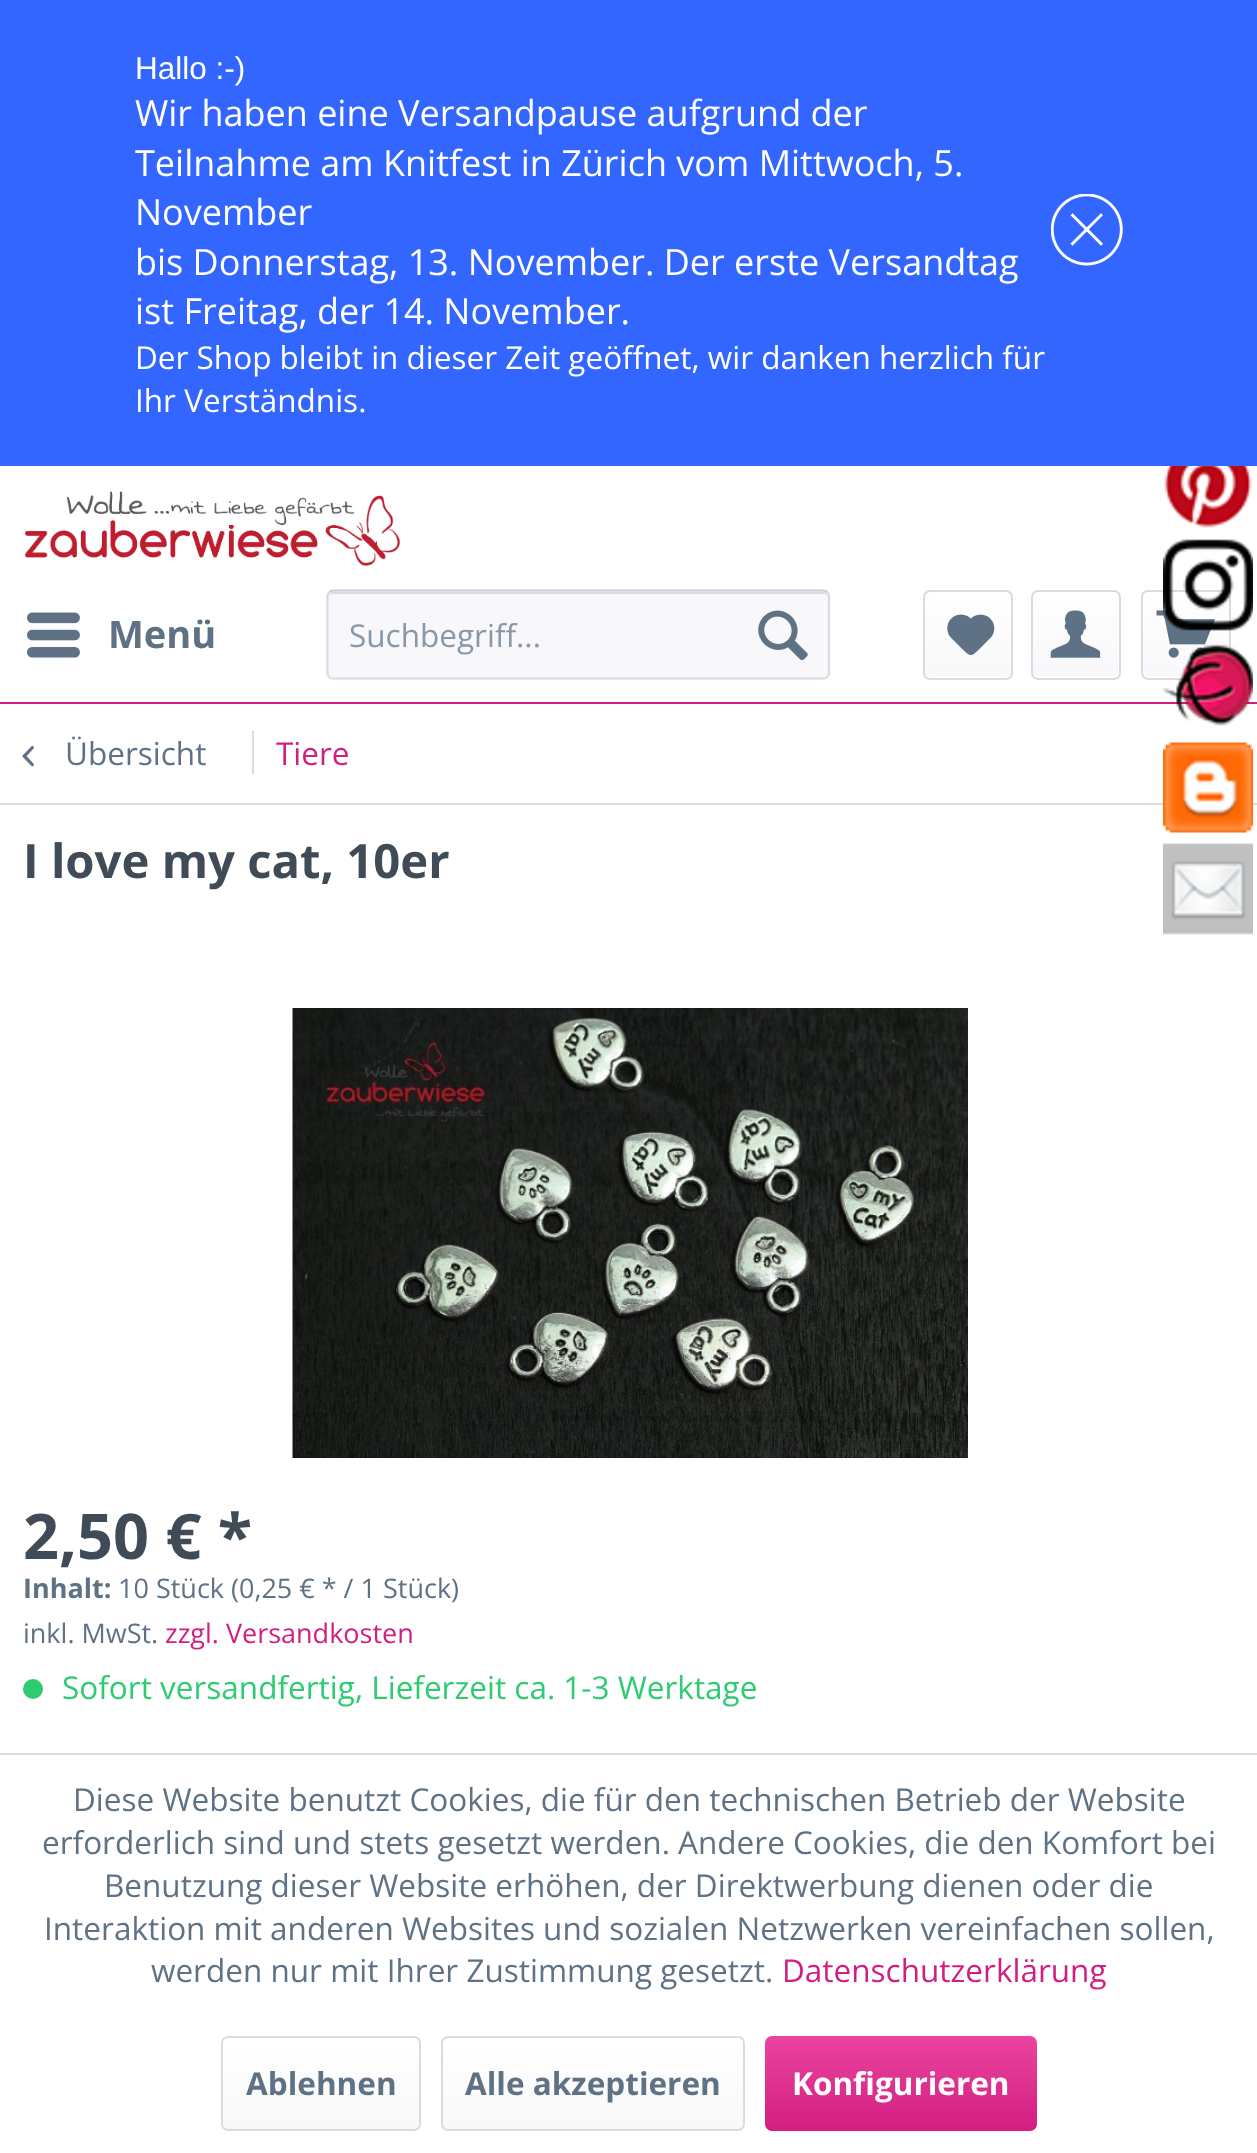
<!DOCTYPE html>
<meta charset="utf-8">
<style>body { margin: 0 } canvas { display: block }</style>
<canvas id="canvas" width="1257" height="2153"></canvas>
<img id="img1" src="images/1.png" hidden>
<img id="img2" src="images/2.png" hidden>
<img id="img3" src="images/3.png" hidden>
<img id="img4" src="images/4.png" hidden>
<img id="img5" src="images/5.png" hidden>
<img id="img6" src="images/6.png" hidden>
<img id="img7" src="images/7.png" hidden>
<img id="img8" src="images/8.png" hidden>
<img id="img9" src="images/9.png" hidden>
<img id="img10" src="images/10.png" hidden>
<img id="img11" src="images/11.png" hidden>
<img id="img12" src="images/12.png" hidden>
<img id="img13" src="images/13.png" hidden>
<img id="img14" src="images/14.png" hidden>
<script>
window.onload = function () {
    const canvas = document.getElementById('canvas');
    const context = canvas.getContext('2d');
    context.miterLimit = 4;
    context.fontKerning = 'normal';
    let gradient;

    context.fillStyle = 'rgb(255, 255, 255)';
    context.fillRect(0, 0, 1257, 2153);
    context.fillStyle = 'rgb(51, 102, 255)';
    context.fillRect(0, 0, 1257, 466);
    context.drawImage(document.getElementById('img1'), 1051, 194, 72, 72);
    context.fillStyle = 'rgb(211, 30, 129)';
    context.fillRect(0, 702, 1257, 2);
    context.drawImage(document.getElementById('img2'), 24, 491, 377, 76);
    context.drawImage(document.getElementById('img3'), 27, 612, 53, 46);
    context.fillStyle = 'rgb(248, 248, 250)';
    context.beginPath();
    context.roundRect(326, 590, 504, 90, 7);
    context.fill();
    context.fillStyle = 'rgb(218, 218, 229)';
    context.beginPath();
    context.moveTo(333, 594);
    context.lineTo(824, 594);
    context.bezierCurveTo(826, 594, 828, 596, 828, 598);
    context.lineTo(828, 597);
    context.bezierCurveTo(828, 594, 826, 592, 823, 592);
    context.lineTo(334, 592);
    context.bezierCurveTo(332, 592, 330, 594, 329, 596);
    context.bezierCurveTo(330, 595, 332, 594, 333, 594);
    context.closePath();
    context.fill();
    context.beginPath();
    context.moveTo(329, 592.5);
    context.bezierCurveTo(330, 591, 331.5, 590.5, 333, 590.5);
    context.lineTo(823.5, 590.5);
    context.bezierCurveTo(825, 590.5, 826.5, 591, 827.5, 592.5);
    context.strokeStyle = 'rgb(203, 203, 219)';
    context.lineWidth = 2.2;
    context.stroke();
    context.beginPath();
    context.moveTo(827.5, 592.5);
    context.bezierCurveTo(828.5, 593.5, 829, 595, 829, 596);
    context.lineTo(829, 673);
    context.bezierCurveTo(829, 674, 828.5, 675.5, 827.5, 676.5);
    context.bezierCurveTo(826.5, 678, 825, 678.5, 823.5, 678.5);
    context.lineTo(333, 678.5);
    context.bezierCurveTo(331.5, 678.5, 330, 678, 329, 676.5);
    context.bezierCurveTo(328, 675.5, 327.5, 674, 327.5, 673);
    context.lineTo(327.5, 596);
    context.bezierCurveTo(327.5, 595, 328, 593.5, 329, 592.5);
    context.strokeStyle = 'rgb(218, 218, 229)';
    context.stroke();
    context.drawImage(document.getElementById('img4'), 758, 610, 50, 50);
    gradient = context.createLinearGradient(968, 592, 968, 677);
    gradient.addColorStop(0, 'rgb(255, 255, 255)');
    gradient.addColorStop(1, 'rgb(248, 248, 250)');
    context.fillStyle = gradient;
    context.beginPath();
    context.roundRect(925, 592, 85, 85, 5);
    context.fill();
    context.beginPath();
    context.roundRect(924, 591, 88, 88, 6);
    context.lineWidth = 2;
    context.stroke();
    context.drawImage(document.getElementById('img5'), 947, 614, 48, 41);
    gradient = context.createLinearGradient(1076, 592, 1076, 677);
    gradient.addColorStop(0, 'rgb(255, 255, 255)');
    gradient.addColorStop(1, 'rgb(248, 248, 250)');
    context.fillStyle = gradient;
    context.beginPath();
    context.roundRect(1033, 592, 85, 85, 5);
    context.fill();
    context.beginPath();
    context.roundRect(1032, 591, 88, 88, 6);
    context.stroke();
    context.drawImage(document.getElementById('img6'), 1050, 610, 51, 48);
    gradient = context.createLinearGradient(1186, 592, 1186, 677);
    gradient.addColorStop(0, 'rgb(255, 255, 255)');
    gradient.addColorStop(1, 'rgb(248, 248, 250)');
    context.fillStyle = gradient;
    context.beginPath();
    context.roundRect(1143, 592, 86, 85, 5);
    context.fill();
    context.beginPath();
    context.roundRect(1142, 591, 88, 88, 6);
    context.stroke();
    context.drawImage(document.getElementById('img7'), 1156, 610, 59, 48);
    context.drawImage(document.getElementById('img8'), 1164, 466, 88, 62);
    context.drawImage(document.getElementById('img9'), 1163, 539, 90, 92);
    context.drawImage(document.getElementById('img10'), 1163, 644, 90, 82);
    context.fillStyle = 'rgb(218, 218, 229)';
    context.fillRect(0, 803, 1257, 2);
    context.drawImage(document.getElementById('img11'), 1163, 742, 90, 91);
    context.drawImage(document.getElementById('img12'), 1163, 843, 90, 92);
    context.drawImage(document.getElementById('img13'), 22, 746, 12, 21);
    context.fillRect(252, 731, 2, 43);
    context.drawImage(document.getElementById('img14'), 292, 1008, 676, 450);
    context.fillStyle = 'rgb(46, 204, 113)';
    context.beginPath();
    context.arc(33, 1689, 10, 0, 2 * Math.PI);
    context.fill();
    context.fillStyle = 'rgb(218, 218, 229)';
    context.fillRect(0, 1753, 1257, 2);
    gradient = context.createLinearGradient(321, 2039, 321, 2129);
    gradient.addColorStop(0, 'rgb(255, 255, 255)');
    gradient.addColorStop(1, 'rgb(248, 248, 250)');
    context.fillStyle = gradient;
    context.beginPath();
    context.roundRect(223, 2039, 196, 90, 5);
    context.fill();
    context.beginPath();
    context.roundRect(222, 2037, 198, 93, 6);
    context.stroke();
    gradient = context.createLinearGradient(593, 2039, 593, 2129);
    gradient.addColorStop(0, 'rgb(255, 255, 255)');
    gradient.addColorStop(1, 'rgb(248, 248, 250)');
    context.fillStyle = gradient;
    context.beginPath();
    context.roundRect(443, 2039, 300, 90, 5);
    context.fill();
    context.beginPath();
    context.roundRect(442, 2037, 302, 93, 6);
    context.stroke();
    gradient = context.createLinearGradient(901, 2036, 901, 2131);
    gradient.addColorStop(0, 'rgb(234, 68, 159)');
    gradient.addColorStop(1, 'rgb(211, 30, 129)');
    context.fillStyle = gradient;
    context.beginPath();
    context.roundRect(765, 2036, 272, 95, 7);
    context.fill();
    context.font = '31.5px Liberation Sans';
    context.fillStyle = 'rgb(255, 255, 255)';
    context.fillText('Hallo :-)', 135, 79);
    context.font = '36px Open Sans';
    context.fillText('Wir haben eine Versandpause aufgrund der', 135, 126);
    context.fillText('Teilnahme am Knitfest in Zürich vom Mittwoch, 5.', 135, 176);
    context.fillText('November', 135, 225);
    context.fillText('bis Donnerstag, 13. November. Der erste Versandtag', 135, 275);
    context.fillText('ist Freitag, der 14. November.', 135, 324);
    context.font = '31.5px Open Sans';
    context.fillText('Der Shop bleibt in dieser Zeit geöffnet, wir danken herzlich für', 135, 369);
    context.fillText('Ihr Verständnis.', 135, 412);
    context.font = 'bold 38px Open Sans';
    context.fillStyle = 'rgb(95, 114, 133)';
    context.fillText('Menü', 108, 648);
    context.font = '31.5px Open Sans';
    context.fillStyle = 'rgb(135, 152, 169)';
    context.fillText('Suchbegriff...', 349, 647);
    context.fillStyle = 'rgb(95, 114, 133)';
    context.fillText('Übersicht', 65, 765);
    context.fillStyle = 'rgb(211, 30, 129)';
    context.fillText('Tiere', 276, 765);
    context.font = 'bold 47.25px Open Sans';
    context.fillStyle = 'rgb(63, 76, 88)';
    context.fillText('I love my cat, 10er', 23, 878);
    context.font = 'bold 63px Open Sans';
    context.fillText('2,50 € *', 23, 1559);
    context.font = 'bold 27px Open Sans';
    context.fillStyle = 'rgb(95, 114, 133)';
    context.fillText('Inhalt:', 23, 1598);
    context.font = '27px Open Sans';
    context.fillText('10 Stück (0,25 € * / 1 Stück)', 118, 1598);
    context.fillText('inkl. MwSt.', 23, 1643);
    context.fillStyle = 'rgb(211, 30, 129)';
    context.fillText('zzgl. Versandkosten', 165, 1643);
    context.font = '31.5px Open Sans';
    context.fillStyle = 'rgb(46, 204, 113)';
    context.fillText('Sofort versandfertig, Lieferzeit ca. 1-3 Werktage', 62, 1699);
    context.fillStyle = 'rgb(95, 114, 133)';
    context.fillText('Diese Website benutzt Cookies, die für den technischen Betrieb der Website', 73, 1811);
    context.fillText('erforderlich sind und stets gesetzt werden. Andere Cookies, die den Komfort bei', 42, 1854);
    context.fillText('Benutzung dieser Website erhöhen, der Direktwerbung dienen oder die', 104, 1897);
    context.fillText('Interaktion mit anderen Websites und sozialen Netzwerken vereinfachen sollen,', 44, 1940);
    context.fillText('werden nur mit Ihrer Zustimmung gesetzt.', 151, 1982);
    context.fillStyle = 'rgb(211, 30, 129)';
    context.fillText('Datenschutzerklärung', 782, 1982);
    context.font = 'bold 31.5px Open Sans';
    context.fillStyle = 'rgb(95, 114, 133)';
    context.fillText('Ablehnen', 246, 2095);
    context.fillText('Alle akzeptieren', 465, 2095);
    context.fillStyle = 'rgb(255, 255, 255)';
    context.fillText('Konfigurieren', 792, 2095);
};
</script>
